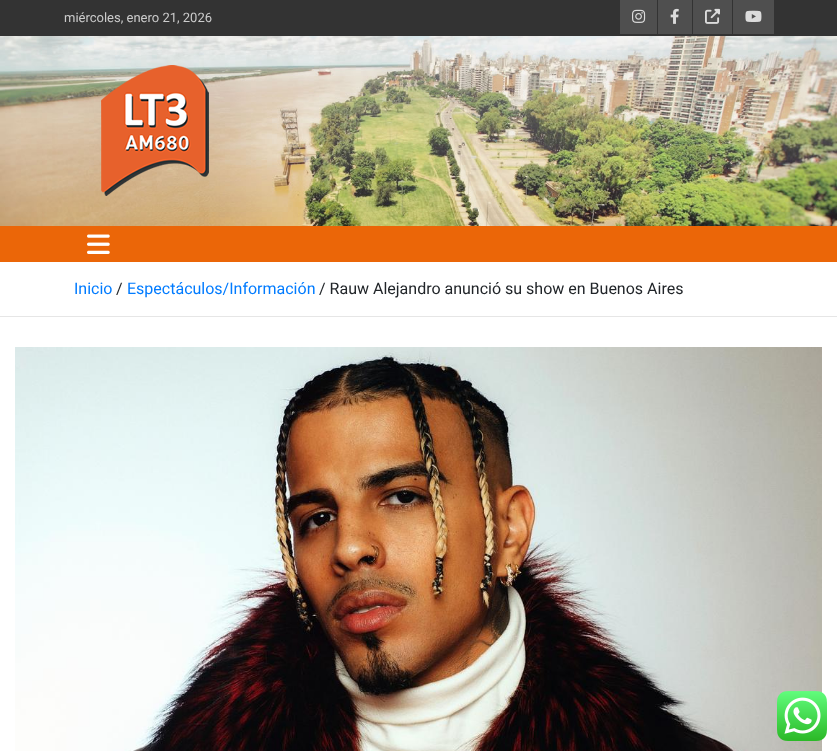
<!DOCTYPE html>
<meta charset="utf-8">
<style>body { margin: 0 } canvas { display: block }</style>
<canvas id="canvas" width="837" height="751"></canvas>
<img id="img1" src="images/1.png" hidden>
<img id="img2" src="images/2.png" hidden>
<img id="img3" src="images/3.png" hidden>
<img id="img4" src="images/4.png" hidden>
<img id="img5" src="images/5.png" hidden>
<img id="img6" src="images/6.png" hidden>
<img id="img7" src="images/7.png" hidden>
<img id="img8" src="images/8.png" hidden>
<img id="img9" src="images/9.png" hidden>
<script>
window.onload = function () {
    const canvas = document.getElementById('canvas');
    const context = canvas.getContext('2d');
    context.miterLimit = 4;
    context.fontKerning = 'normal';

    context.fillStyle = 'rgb(255, 255, 255)';
    context.fillRect(0, 0, 837, 751);
    context.fillStyle = 'rgb(51, 51, 51)';
    context.fillRect(0, 0, 837, 36);
    context.fillStyle = 'rgb(79, 79, 79)';
    context.fillRect(620, 0, 37, 34);
    context.drawImage(document.getElementById('img1'), 632, 9, 14, 14);
    context.fillRect(658, 0, 34, 34);
    context.drawImage(document.getElementById('img2'), 670, 8, 9, 16);
    context.fillRect(693, 0, 39, 34);
    context.drawImage(document.getElementById('img3'), 705, 8, 15, 16);
    context.fillRect(733, 0, 41, 34);
    context.drawImage(document.getElementById('img4'), 745, 10, 17, 12);
    context.drawImage(document.getElementById('img5'), 0, 36, 837, 190);
    context.drawImage(document.getElementById('img6'), 101, 65, 108, 131);
    context.fillStyle = 'rgb(235, 102, 8)';
    context.fillRect(0, 226, 837, 36);
    context.drawImage(document.getElementById('img7'), 87, 234, 23, 20);
    context.fillStyle = 'rgb(230, 230, 230)';
    context.fillRect(0, 316, 837, 1);
    context.drawImage(document.getElementById('img8'), 15, 347, 807, 404);
    context.drawImage(document.getElementById('img9'), 777, 691, 50, 50);
    context.font = '13px Roboto';
    context.fillStyle = 'rgb(204, 204, 204)';
    context.fillText('miércoles, enero 21, 2026', 64, 22);
    context.font = '16px Roboto';
    context.fillStyle = 'rgb(0, 123, 255)';
    context.fillText('Inicio', 74, 294);
    context.fillStyle = 'rgb(33, 37, 41)';
    context.fillText('/', 116, 294);
    context.fillStyle = 'rgb(0, 123, 255)';
    context.fillText('Espectáculos/Información', 127, 294);
    context.fillStyle = 'rgb(33, 37, 41)';
    context.fillText('/ Rauw Alejandro anunció su show en Buenos Aires', 319, 294);
};
</script>
